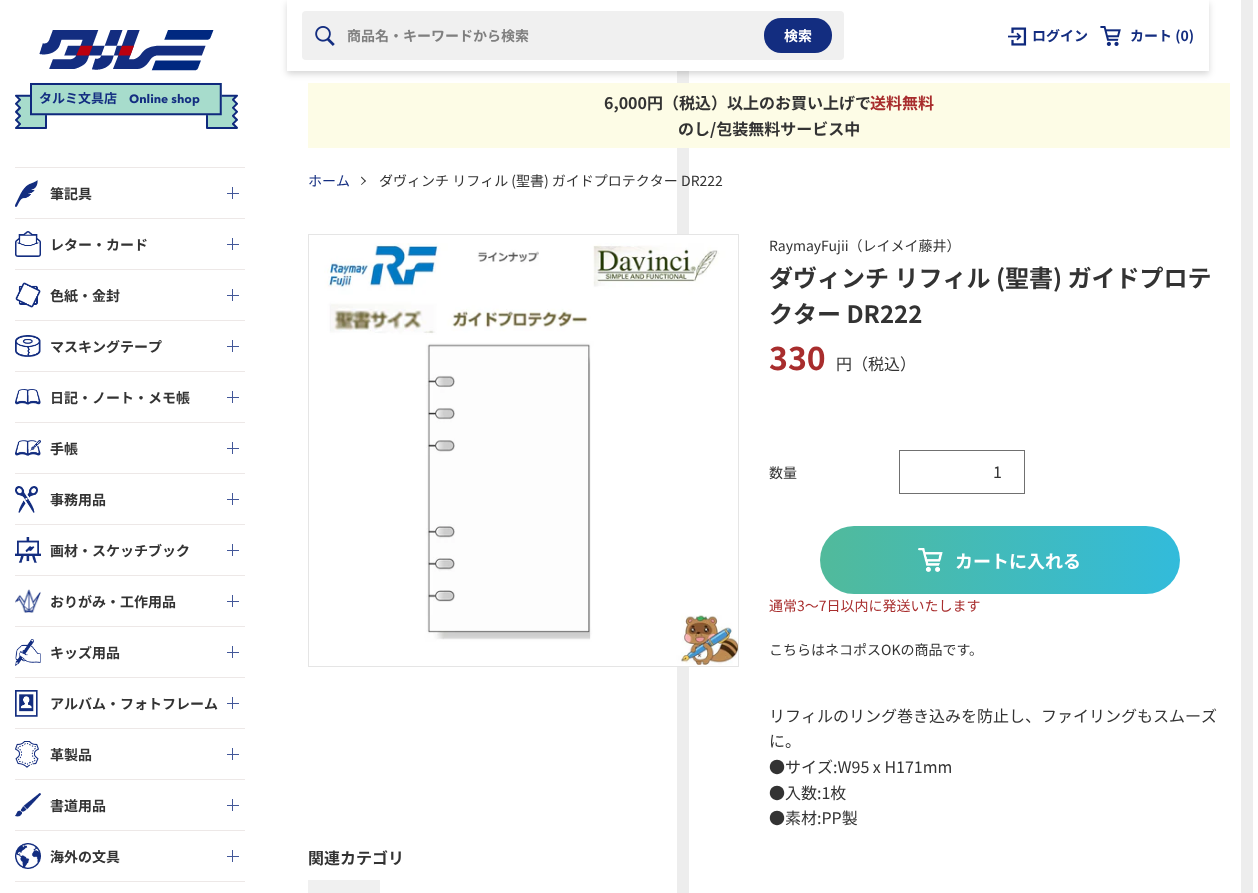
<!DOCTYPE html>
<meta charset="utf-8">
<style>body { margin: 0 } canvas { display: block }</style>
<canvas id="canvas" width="1258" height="893"></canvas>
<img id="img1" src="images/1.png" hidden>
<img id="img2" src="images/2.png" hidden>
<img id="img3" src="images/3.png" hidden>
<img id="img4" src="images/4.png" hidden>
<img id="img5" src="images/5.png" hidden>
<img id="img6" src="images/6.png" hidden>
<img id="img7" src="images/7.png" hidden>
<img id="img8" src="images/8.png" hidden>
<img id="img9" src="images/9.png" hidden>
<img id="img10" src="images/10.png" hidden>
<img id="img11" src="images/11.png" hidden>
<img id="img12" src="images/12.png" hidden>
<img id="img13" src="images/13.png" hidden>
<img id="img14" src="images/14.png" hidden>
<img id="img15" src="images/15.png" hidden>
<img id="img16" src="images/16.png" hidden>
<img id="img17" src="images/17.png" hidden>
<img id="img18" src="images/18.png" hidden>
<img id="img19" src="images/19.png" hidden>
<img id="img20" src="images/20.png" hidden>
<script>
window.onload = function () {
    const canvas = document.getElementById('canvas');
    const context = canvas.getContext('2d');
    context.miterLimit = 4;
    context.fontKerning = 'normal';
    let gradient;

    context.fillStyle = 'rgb(255, 255, 255)';
    context.fillRect(0, 0, 1258, 893);
    context.drawImage(document.getElementById('img1'), 15, 30, 223, 99);
    context.fillStyle = 'rgb(237, 232, 231)';
    context.fillRect(15, 167, 230, 1);
    context.fillRect(15, 218, 230, 1);
    context.drawImage(document.getElementById('img2'), 15, 180, 23, 27);
    context.fillStyle = 'rgb(66, 87, 153)';
    context.fillRect(227, 193, 12, 1);
    context.fillRect(232, 187, 1, 12);
    context.fillStyle = 'rgb(237, 232, 231)';
    context.fillRect(15, 269, 230, 1);
    context.drawImage(document.getElementById('img3'), 15, 231, 26, 26);
    context.fillStyle = 'rgb(66, 87, 153)';
    context.fillRect(227, 244, 12, 1);
    context.fillRect(232, 238, 1, 12);
    context.fillStyle = 'rgb(237, 232, 231)';
    context.fillRect(15, 320, 230, 1);
    context.drawImage(document.getElementById('img4'), 15, 282, 26, 26);
    context.fillStyle = 'rgb(66, 87, 153)';
    context.fillRect(227, 295, 12, 1);
    context.fillRect(232, 289, 1, 12);
    context.fillStyle = 'rgb(237, 232, 231)';
    context.fillRect(15, 371, 230, 1);
    context.drawImage(document.getElementById('img5'), 15, 335, 26, 22);
    context.fillStyle = 'rgb(66, 87, 153)';
    context.fillRect(227, 346, 12, 1);
    context.fillRect(232, 340, 1, 12);
    context.fillStyle = 'rgb(237, 232, 231)';
    context.fillRect(15, 422, 230, 1);
    context.drawImage(document.getElementById('img6'), 15, 389, 26, 16);
    context.fillStyle = 'rgb(66, 87, 153)';
    context.fillRect(227, 397, 12, 1);
    context.fillRect(232, 391, 1, 12);
    context.fillStyle = 'rgb(237, 232, 231)';
    context.fillRect(15, 473, 230, 1);
    context.drawImage(document.getElementById('img7'), 15, 440, 26, 16);
    context.fillStyle = 'rgb(66, 87, 153)';
    context.fillRect(227, 448, 12, 1);
    context.fillRect(232, 442, 1, 12);
    context.fillStyle = 'rgb(237, 232, 231)';
    context.fillRect(15, 524, 230, 1);
    context.drawImage(document.getElementById('img8'), 15, 486, 23, 27);
    context.fillStyle = 'rgb(66, 87, 153)';
    context.fillRect(227, 499, 12, 1);
    context.fillRect(232, 493, 1, 12);
    context.fillStyle = 'rgb(237, 232, 231)';
    context.fillRect(15, 575, 230, 1);
    context.drawImage(document.getElementById('img9'), 15, 537, 26, 26);
    context.fillStyle = 'rgb(66, 87, 153)';
    context.fillRect(227, 550, 12, 1);
    context.fillRect(232, 544, 1, 12);
    context.fillStyle = 'rgb(237, 232, 231)';
    context.fillRect(15, 626, 230, 1);
    context.drawImage(document.getElementById('img10'), 15, 589, 26, 24);
    context.fillStyle = 'rgb(66, 87, 153)';
    context.fillRect(227, 601, 12, 1);
    context.fillRect(232, 595, 1, 12);
    context.fillStyle = 'rgb(237, 232, 231)';
    context.fillRect(15, 677, 230, 1);
    context.drawImage(document.getElementById('img11'), 15, 639, 26, 27);
    context.fillStyle = 'rgb(66, 87, 153)';
    context.fillRect(227, 652, 12, 1);
    context.fillRect(232, 646, 1, 12);
    context.fillStyle = 'rgb(237, 232, 231)';
    context.fillRect(15, 728, 230, 1);
    context.drawImage(document.getElementById('img12'), 15, 690, 23, 27);
    context.fillStyle = 'rgb(66, 87, 153)';
    context.fillRect(227, 703, 12, 1);
    context.fillRect(232, 697, 1, 12);
    context.fillStyle = 'rgb(237, 232, 231)';
    context.fillRect(15, 779, 230, 1);
    context.drawImage(document.getElementById('img13'), 15, 741, 24, 27);
    context.fillStyle = 'rgb(66, 87, 153)';
    context.fillRect(227, 754, 12, 1);
    context.fillRect(232, 748, 1, 12);
    context.fillStyle = 'rgb(237, 232, 231)';
    context.fillRect(15, 830, 230, 1);
    context.drawImage(document.getElementById('img14'), 15, 793, 26, 24);
    context.fillStyle = 'rgb(66, 87, 153)';
    context.fillRect(227, 805, 12, 1);
    context.fillRect(232, 799, 1, 12);
    context.fillStyle = 'rgb(237, 232, 231)';
    context.fillRect(15, 881, 230, 1);
    context.drawImage(document.getElementById('img15'), 15, 843, 26, 26);
    context.fillStyle = 'rgb(66, 87, 153)';
    context.fillRect(227, 856, 12, 1);
    context.fillRect(232, 850, 1, 12);
    gradient = context.createLinearGradient(260, 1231, 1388, 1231);
    gradient.addColorStop(0, 'rgb(255, 255, 255)');
    gradient.addColorStop(0.12, 'rgb(255, 255, 255)');
    gradient.addColorStop(0.12, 'rgb(237, 237, 237)');
    gradient.addColorStop(0.12, 'rgb(255, 255, 255)');
    gradient.addColorStop(0.25, 'rgb(255, 255, 255)');
    gradient.addColorStop(0.25, 'rgb(237, 237, 237)');
    gradient.addColorStop(0.25, 'rgb(255, 255, 255)');
    gradient.addColorStop(0.37, 'rgb(255, 255, 255)');
    gradient.addColorStop(0.37, 'rgb(237, 237, 237)');
    gradient.addColorStop(0.38, 'rgb(237, 237, 237)');
    gradient.addColorStop(0.38, 'rgb(255, 255, 255)');
    gradient.addColorStop(0.5, 'rgb(255, 255, 255)');
    gradient.addColorStop(0.5, 'rgb(237, 237, 237)');
    gradient.addColorStop(0.5, 'rgb(255, 255, 255)');
    gradient.addColorStop(0.62, 'rgb(255, 255, 255)');
    gradient.addColorStop(0.62, 'rgb(237, 237, 237)');
    gradient.addColorStop(0.62, 'rgb(255, 255, 255)');
    gradient.addColorStop(0.75, 'rgb(255, 255, 255)');
    gradient.addColorStop(0.75, 'rgb(237, 237, 237)');
    gradient.addColorStop(0.75, 'rgb(255, 255, 255)');
    gradient.addColorStop(0.87, 'rgb(255, 255, 255)');
    gradient.addColorStop(0.87, 'rgb(237, 237, 237)');
    gradient.addColorStop(0.88, 'rgb(237, 237, 237)');
    gradient.addColorStop(0.88, 'rgb(255, 255, 255)');
    gradient.addColorStop(1, 'rgb(255, 255, 255)');
    gradient.addColorStop(1, 'rgb(237, 237, 237)');
    context.fillStyle = gradient;
    context.fillRect(677, 0, 576, 893);
    context.fillStyle = 'rgb(253, 252, 230)';
    context.fillRect(308, 83, 922, 65);
    context.fillStyle = 'rgba(0, 0, 0, 0.16)';
    context.filter = 'blur(3px)';
    context.beginPath();
    context.rect(287, 3, 922, 71);
    context.fill();
    context.filter = 'none';
    context.fillStyle = 'rgb(255, 255, 255)';
    context.fillRect(287, 0, 922, 71);
    context.fillStyle = 'rgb(240, 240, 240)';
    context.beginPath();
    context.roundRect(302, 11, 542, 49, 4);
    context.fill();
    context.drawImage(document.getElementById('img16'), 315, 26, 20, 20);
    context.fillStyle = 'rgb(19, 45, 128)';
    context.beginPath();
    context.roundRect(764, 18, 68, 35, 17);
    context.fill();
    context.drawImage(document.getElementById('img17'), 1008, 27, 19, 19);
    context.drawImage(document.getElementById('img18'), 1100, 26, 21, 20);
    context.fillStyle = 'rgb(51, 51, 51)';
    context.beginPath();
    context.moveTo(361.5, 176.5);
    context.lineTo(366, 181);
    context.lineTo(365, 181.5);
    context.lineTo(361, 177.5);
    context.closePath();
    context.fill();
    context.beginPath();
    context.moveTo(365, 180.5);
    context.lineTo(366, 181);
    context.lineTo(361.5, 185);
    context.lineTo(361, 184.5);
    context.closePath();
    context.fill();
    context.fillStyle = 'rgb(255, 255, 255)';
    context.fillRect(677, 235, 12, 431);
    context.strokeStyle = 'rgb(229, 229, 229)';
    context.strokeRect(308.5, 234.5, 430, 432);
    context.drawImage(document.getElementById('img19'), 324, 243, 414, 422);
    context.strokeStyle = 'rgb(112, 112, 112)';
    context.strokeRect(899.5, 450.5, 125, 43);
    gradient = context.createLinearGradient(820, 560, 1180, 560);
    gradient.addColorStop(0, 'rgb(81, 186, 155)');
    gradient.addColorStop(1, 'rgb(50, 187, 219)');
    context.fillStyle = gradient;
    context.beginPath();
    context.roundRect(820, 526, 360, 68, 34);
    context.fill();
    context.drawImage(document.getElementById('img20'), 918, 548, 25, 24);
    context.fillStyle = 'rgb(240, 240, 240)';
    context.fillRect(308, 880, 72, 13);
    context.font = 'bold 14px Noto Sans JP';
    context.fillStyle = 'rgb(51, 51, 51)';
    context.fillText('筆記具', 50, 199);
    context.fillText('レター・カード', 50, 250);
    context.fillText('色紙・金封', 50, 301);
    context.fillText('マスキングテープ', 50, 352);
    context.fillText('日記・ノート・メモ帳', 50, 403);
    context.fillText('手帳', 50, 454);
    context.fillText('事務用品', 50, 505);
    context.fillText('画材・スケッチブック', 50, 556);
    context.fillText('おりがみ・工作用品', 50, 607);
    context.fillText('キッズ用品', 50, 658);
    context.fillText('アルバム・フォトフレーム', 50, 709);
    context.fillText('革製品', 50, 760);
    context.fillText('書道用品', 50, 811);
    context.fillText('海外の文具', 50, 862);
    context.fillStyle = 'rgb(127, 127, 127)';
    context.fillText('商品名・キーワードから検索', 347, 41);
    context.fillStyle = 'rgb(255, 255, 255)';
    context.fillText('検索', 784, 41);
    context.fillStyle = 'rgb(19, 45, 128)';
    context.fillText('ログイン', 1032, 41);
    context.fillText('カート (0)', 1130, 41);
    context.font = 'bold 16px Noto Sans JP';
    context.fillStyle = 'rgb(51, 51, 51)';
    context.fillText('6,000円（税込）以上のお買い上げで', 604, 109);
    context.fillStyle = 'rgb(168, 45, 45)';
    context.fillText('送料無料', 870, 109);
    context.fillStyle = 'rgb(51, 51, 51)';
    context.fillText('のし/包装無料サービス中', 678, 135);
    context.font = '14px Noto Sans JP';
    context.fillStyle = 'rgb(19, 45, 128)';
    context.fillText('ホーム', 308, 186);
    context.fillStyle = 'rgb(51, 51, 51)';
    context.fillText('ダヴィンチ リフィル (聖書) ガイドプロテクター DR222', 379, 186);
    context.fillText('RaymayFujii（レイメイ藤井）', 769, 251);
    context.font = 'bold 24px Noto Sans JP';
    context.fillText('ダヴィンチ リフィル (聖書) ガイドプロテ', 769, 287);
    context.fillText('クター DR222', 769, 323);
    context.font = 'bold 32px Noto Sans JP';
    context.fillStyle = 'rgb(168, 45, 45)';
    context.fillText('330', 769, 370);
    context.font = '16px Noto Sans JP';
    context.fillStyle = 'rgb(51, 51, 51)';
    context.fillText('円（税込）', 836, 370);
    context.font = '14px Noto Sans JP';
    context.fillText('数量', 769, 478);
    context.font = '16px Noto Sans JP';
    context.fillText('1', 993, 478);
    context.font = 'bold 18px Noto Sans JP';
    context.fillStyle = 'rgb(255, 255, 255)';
    context.fillText('カートに入れる', 955, 568);
    context.font = '14px Noto Sans JP';
    context.fillStyle = 'rgb(168, 45, 45)';
    context.fillText('通常3〜7日以内に発送いたします', 769, 611);
    context.fillStyle = 'rgb(51, 51, 51)';
    context.fillText('こちらはネコポスOKの商品です。', 769, 655);
    context.font = '16px Noto Sans JP';
    context.fillText('リフィルのリング巻き込みを防止し、ファイリングもスムーズ', 769, 722);
    context.fillText('に。', 769, 747);
    context.fillText('●サイズ:W95 x H171mm', 769, 773);
    context.fillText('●入数:1枚', 769, 799);
    context.fillText('●素材:PP製', 769, 824);
    context.font = 'bold 16px Noto Sans JP';
    context.fillText('関連カテゴリ', 308, 864);
};
</script>
